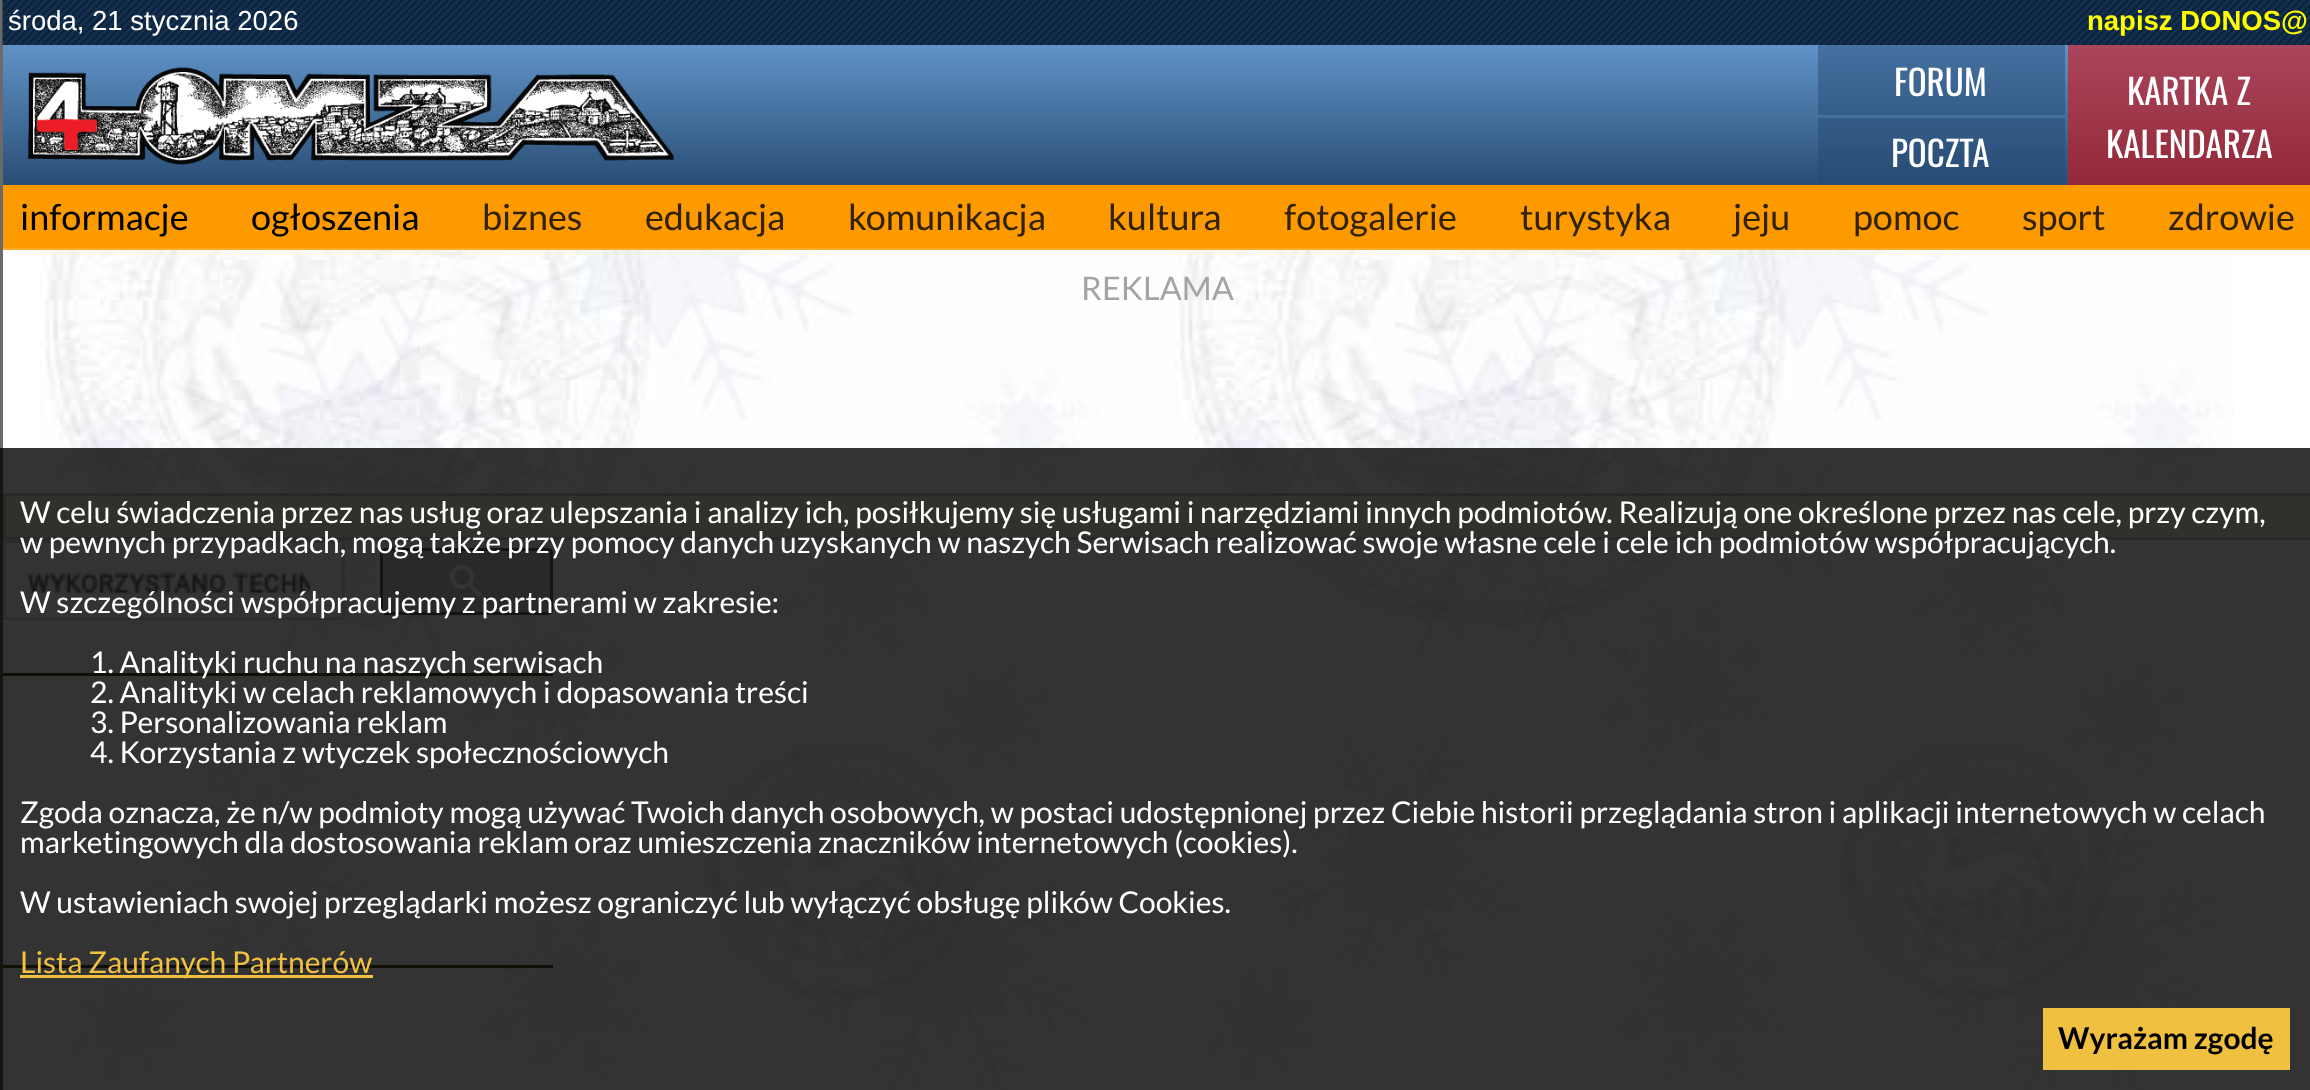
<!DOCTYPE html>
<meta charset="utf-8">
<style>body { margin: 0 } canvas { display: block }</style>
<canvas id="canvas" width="2310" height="1090"></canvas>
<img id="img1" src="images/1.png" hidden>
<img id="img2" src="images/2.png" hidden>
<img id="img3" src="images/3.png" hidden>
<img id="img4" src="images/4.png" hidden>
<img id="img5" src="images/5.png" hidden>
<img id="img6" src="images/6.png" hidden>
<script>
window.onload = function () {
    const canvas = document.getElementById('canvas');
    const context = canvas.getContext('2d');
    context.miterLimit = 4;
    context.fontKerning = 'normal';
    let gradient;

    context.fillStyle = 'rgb(255, 255, 255)';
    context.fillRect(0, 0, 2310, 1090);
    context.drawImage(document.getElementById('img1'), 40, 250, 2194, 840);
    context.drawImage(document.getElementById('img2'), 3, 248, 2307, 2);
    context.fillStyle = 'rgb(106, 106, 106)';
    context.fillRect(0, 0, 3, 1090);
    context.drawImage(document.getElementById('img3'), 2, 0, 2308, 45);
    gradient = context.createLinearGradient(1158, 45, 1158, 185);
    gradient.addColorStop(0, 'rgb(96, 146, 199)');
    gradient.addColorStop(1, 'rgb(41, 78, 117)');
    context.fillStyle = gradient;
    context.fillRect(3, 45, 2307, 140);
    context.drawImage(document.getElementById('img4'), 27, 67, 647, 98);
    context.fillStyle = 'rgba(37, 72, 113, 0.46)';
    context.fillRect(1818, 45, 247, 70);
    context.fillStyle = 'rgba(223, 16, 16, 0.59)';
    context.fillRect(2068, 45, 242, 140);
    context.fillStyle = 'rgba(37, 72, 113, 0.46)';
    context.fillRect(1818, 118, 247, 67);
    context.fillStyle = 'rgb(252, 154, 0)';
    context.fillRect(3, 185, 2307, 63);
    context.fillStyle = 'rgb(241, 240, 220)';
    context.beginPath();
    context.rect(4.5, 494.5, 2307, 44);
    context.fill();
    context.strokeStyle = 'rgb(198, 197, 180)';
    context.lineWidth = 3;
    context.stroke();
    context.fillStyle = 'rgb(255, 255, 255)';
    context.fillRect(139, 543, 203, 74);
    context.strokeStyle = 'rgb(217, 217, 217)';
    context.strokeRect(4.5, 541.5, 339, 77);
    context.drawImage(document.getElementById('img5'), 27, 572, 283, 22);
    context.fillStyle = 'rgb(206, 206, 206)';
    context.beginPath();
    context.roundRect(381.5, 549.5, 170, 64, 3.5);
    context.fill();
    context.strokeStyle = 'rgb(102, 102, 102)';
    context.stroke();
    context.drawImage(document.getElementById('img6'), 450, 565, 33, 33);
    context.fillStyle = 'rgb(80, 81, 43)';
    context.fillRect(3, 673, 550, 3);
    context.fillRect(3, 965, 550, 3);
    context.fillStyle = 'rgba(0, 0, 0, 0.8)';
    context.fillRect(0, 448, 2310, 642);
    context.fillStyle = 'rgb(240, 192, 64)';
    context.fillRect(20, 975, 353, 3);
    context.fillRect(2043, 1008, 247, 62);
    context.font = '27.5px Liberation Sans';
    context.fillStyle = 'rgb(255, 255, 255)';
    context.fillText('środa, 21 stycznia 2026', 8, 30);
    context.font = 'bold 27.5px Liberation Sans';
    context.fillStyle = 'rgb(255, 255, 0)';
    context.fillText('napisz DONOS@', 2087, 30);
    context.font = '35px Oswald';
    context.fillStyle = 'rgb(255, 255, 255)';
    context.fillText('FORUM', 1894, 96);
    context.fillText('KARTKA Z', 2127, 105);
    context.fillText('KALENDARZA', 2106, 158);
    context.fillText('POCZTA', 1891, 167);
    context.font = '36px Lato';
    context.fillStyle = 'rgb(0, 0, 0)';
    context.fillText('informacje', 20, 230);
    context.fillText('ogłoszenia', 251, 230);
    context.fillStyle = 'rgb(49, 33, 7)';
    context.fillText('biznes', 482, 230);
    context.fillText('edukacja', 645, 230);
    context.fillText('komunikacja', 848, 230);
    context.fillText('kultura', 1108, 230);
    context.fillText('fotogalerie', 1284, 230);
    context.fillText('turystyka', 1520, 230);
    context.fillText('jeju', 1733, 230);
    context.fillText('pomoc', 1853, 230);
    context.fillText('sport', 2022, 230);
    context.fillText('zdrowie', 2168, 230);
    context.font = '32.5px Lato';
    context.fillStyle = 'rgb(164, 164, 164)';
    context.fillText('REKLAMA', 1081, 300);
    context.font = '30px Lato';
    context.fillStyle = 'rgb(255, 255, 255)';
    context.fillText('W celu świadczenia przez nas usług oraz ulepszania i analizy ich, posiłkujemy się usługami i narzędziami innych podmiotów. Realizują one określone przez nas cele, przy czym,', 20, 523);
    context.fillText('w pewnych przypadkach, mogą także przy pomocy danych uzyskanych w naszych Serwisach realizować swoje własne cele i cele ich podmiotów współpracujących.', 20, 553);
    context.fillText('W szczególności współpracujemy z partnerami w zakresie:', 20, 613);
    context.fillText('1. Analityki ruchu na naszych serwisach', 90, 673);
    context.fillText('2. Analityki w celach reklamowych i dopasowania treści', 90, 703);
    context.fillText('3. Personalizowania reklam', 90, 733);
    context.fillText('4. Korzystania z wtyczek społecznościowych', 90, 763);
    context.fillText('Zgoda oznacza, że n/w podmioty mogą używać Twoich danych osobowych, w postaci udostępnionej przez Ciebie historii przeglądania stron i aplikacji internetowych w celach', 20, 823);
    context.fillText('marketingowych dla dostosowania reklam oraz umieszczenia znaczników internetowych (cookies).', 20, 853);
    context.fillText('W ustawieniach swojej przeglądarki możesz ograniczyć lub wyłączyć obsługę plików Cookies.', 20, 913);
    context.fillStyle = 'rgb(240, 192, 64)';
    context.fillText('Lista Zaufanych Partnerów', 20, 973);
    context.font = 'bold 30px Lato';
    context.fillStyle = 'rgb(0, 0, 0)';
    context.fillText('Wyrażam zgodę', 2058, 1049);
};
</script>
